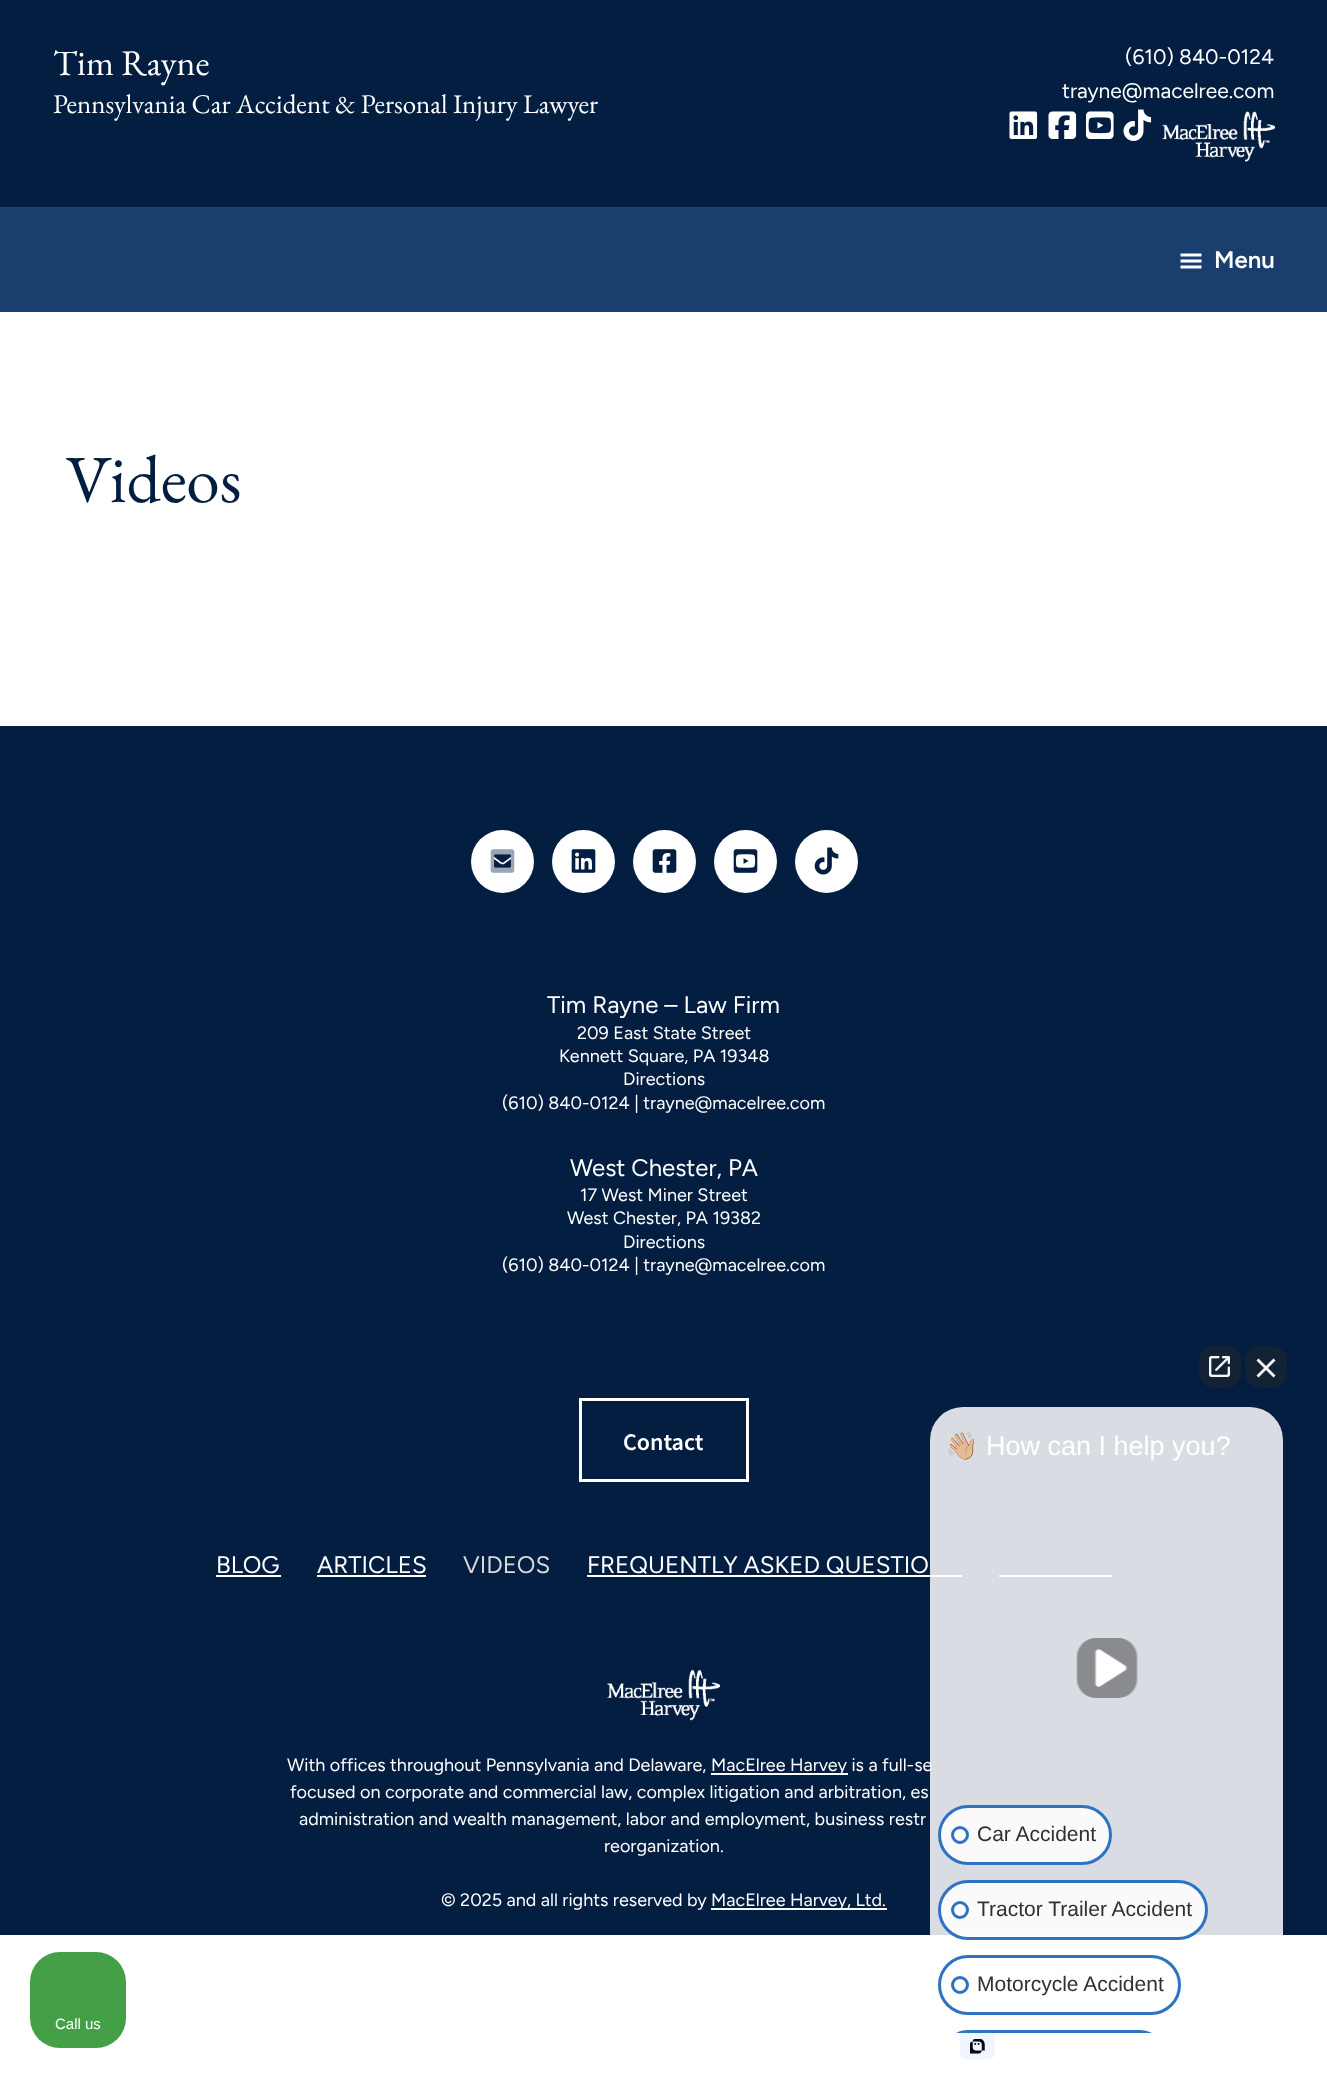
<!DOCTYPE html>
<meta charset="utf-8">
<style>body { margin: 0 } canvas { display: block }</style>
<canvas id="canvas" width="1327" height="2077"></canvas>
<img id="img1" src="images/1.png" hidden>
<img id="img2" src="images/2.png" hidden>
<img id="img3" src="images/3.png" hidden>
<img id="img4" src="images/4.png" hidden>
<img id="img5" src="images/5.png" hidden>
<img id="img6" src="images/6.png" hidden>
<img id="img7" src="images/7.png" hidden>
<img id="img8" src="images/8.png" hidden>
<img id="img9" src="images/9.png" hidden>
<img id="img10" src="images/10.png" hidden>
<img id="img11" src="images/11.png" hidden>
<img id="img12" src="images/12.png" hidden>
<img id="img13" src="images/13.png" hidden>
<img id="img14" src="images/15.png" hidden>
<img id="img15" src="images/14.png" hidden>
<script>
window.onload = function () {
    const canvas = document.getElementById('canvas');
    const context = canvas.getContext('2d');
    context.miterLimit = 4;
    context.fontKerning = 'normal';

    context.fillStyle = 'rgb(255, 255, 255)';
    context.fillRect(0, 0, 1327, 2077);
    context.fillStyle = 'rgb(4, 30, 66)';
    context.fillRect(0, 0, 1327, 207);
    context.drawImage(document.getElementById('img1'), 1009, 111, 29, 28);
    context.drawImage(document.getElementById('img2'), 1048, 111, 29, 28);
    context.drawImage(document.getElementById('img3'), 1086, 111, 28, 28);
    context.drawImage(document.getElementById('img4'), 1123, 109, 29, 32);
    context.drawImage(document.getElementById('img5'), 1162, 111, 113, 51);
    context.fillStyle = 'rgb(26, 62, 109)';
    context.fillRect(0, 207, 1327, 105);
    context.drawImage(document.getElementById('img6'), 1180, 253, 22, 16);
    context.fillStyle = 'rgb(4, 30, 66)';
    context.fillRect(0, 726, 1327, 1209);
    context.fillStyle = 'rgb(255, 255, 255)';
    context.beginPath();
    context.arc(502.5, 861.5, 31.5, 0, 2 * Math.PI);
    context.fill();
    context.drawImage(document.getElementById('img7'), 490, 849, 25, 24);
    context.beginPath();
    context.arc(583.5, 861.5, 31.5, 0, 2 * Math.PI);
    context.fill();
    context.drawImage(document.getElementById('img8'), 571, 849, 25, 24);
    context.beginPath();
    context.arc(664.5, 861.5, 31.5, 0, 2 * Math.PI);
    context.fill();
    context.drawImage(document.getElementById('img9'), 652, 849, 25, 24);
    context.beginPath();
    context.arc(745.5, 861.5, 31.5, 0, 2 * Math.PI);
    context.fill();
    context.drawImage(document.getElementById('img10'), 733, 849, 25, 24);
    context.beginPath();
    context.arc(826.5, 861.5, 31.5, 0, 2 * Math.PI);
    context.fill();
    context.drawImage(document.getElementById('img11'), 814, 847, 25, 28);
    context.strokeStyle = 'rgb(255, 255, 255)';
    context.lineWidth = 3;
    context.strokeRect(580.5, 1399.5, 167, 81);
    context.fillRect(216, 1575, 65, 2);
    context.fillRect(317, 1575, 109, 2);
    context.fillRect(587, 1575, 375, 2);
    context.fillRect(999, 1575, 113, 2);
    context.drawImage(document.getElementById('img12'), 607, 1669, 113, 52);
    context.fillRect(711, 1773, 137, 2);
    context.fillRect(711, 1908, 176, 2);
    context.fillStyle = 'rgb(20, 34, 54)';
    context.beginPath();
    context.roundRect(1199, 1346, 42, 42, 15);
    context.fill();
    context.drawImage(document.getElementById('img13'), 1209, 1356, 21, 21);
    context.beginPath();
    context.roundRect(1245, 1346, 42, 42, 15);
    context.fill();
    context.fillStyle = 'rgb(245, 245, 245)';
    context.beginPath();
    context.moveTo(1256.5, 1360.5);
    context.lineTo(1258.5, 1358.5);
    context.lineTo(1275.5, 1375.5);
    context.lineTo(1273.5, 1377.5);
    context.closePath();
    context.fill();
    context.beginPath();
    context.moveTo(1273.5, 1358.5);
    context.lineTo(1275.5, 1360.5);
    context.lineTo(1258.5, 1377.5);
    context.lineTo(1256.5, 1375.5);
    context.closePath();
    context.fill();
    context.drawImage(document.getElementById('img14'), 960, 2033, 35, 27);
    context.fillStyle = 'rgb(67, 160, 71)';
    context.beginPath();
    context.roundRect(30, 1952, 96, 96, 30);
    context.fill();
    context.font = '36px EB Garamond';
    context.fillStyle = 'rgb(255, 255, 255)';
    context.fillText('Tim Rayne', 53, 75);
    context.font = '27px EB Garamond';
    context.fillText('Pennsylvania Car Accident & Personal Injury Lawyer', 53, 113);
    context.font = '21px Figtree';
    context.fillText('(610) 840-0124', 1125, 64);
    context.fillText('trayne@macelree.com', 1062, 98);
    context.font = '600 24px Figtree';
    context.fillText('Menu', 1214, 268);
    context.font = '67.5px EB Garamond';
    context.fillStyle = 'rgb(4, 30, 66)';
    context.fillText('Videos', 66, 502);
    context.font = '24px Figtree';
    context.fillStyle = 'rgb(255, 255, 255)';
    context.fillText('Tim Rayne – Law Firm', 547, 1013);
    context.font = '18px Figtree';
    context.fillText('209 East State Street', 577, 1039);
    context.fillText('Kennett Square, PA 19348', 559, 1062);
    context.fillText('Directions', 623, 1085);
    context.fillText('(610) 840-0124 | trayne@macelree.com', 502, 1109);
    context.font = '24px Figtree';
    context.fillText('West Chester, PA', 570, 1176);
    context.font = '18px Figtree';
    context.fillText('17 West Miner Street', 580, 1201);
    context.fillText('West Chester, PA 19382', 567, 1224);
    context.fillText('Directions', 623, 1248);
    context.fillText('(610) 840-0124 | trayne@macelree.com', 502, 1271);
    context.font = '600 24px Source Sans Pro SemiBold';
    context.fillText('Contact', 623, 1450);
    context.font = '24px Figtree';
    context.fillText('BLOG', 216, 1573);
    context.fillText('ARTICLES', 317, 1573);
    context.fillStyle = 'rgb(217, 217, 214)';
    context.fillText('VIDEOS', 463, 1573);
    context.fillStyle = 'rgb(255, 255, 255)';
    context.fillText('FREQUENTLY ASKED QUESTIO', 587, 1573);
    context.font = '18px Figtree';
    context.fillText('With offices throughout Pennsylvania and Delaware,', 287, 1771);
    context.fillText('MacElree Harvey is a full-se', 711, 1771);
    context.fillText('focused on corporate and commercial law, complex litigation and arbitration, es', 290, 1798);
    context.fillText('administration and wealth management, labor and employment, business restr', 299, 1825);
    context.fillText('reorganization.', 604, 1852);
    context.fillText('© 2025 and all rights reserved by', 441, 1906);
    context.fillText('MacElree Harvey, Ltd.', 711, 1906);
    context.fillStyle = 'rgba(255, 255, 255, 0.85)';
    context.beginPath();
    context.roundRect(930, 1407, 353, 626, 33);
    context.fill();
    context.font = '27px Noto Color Emoji';
    context.fillStyle = 'rgb(255, 255, 255)';
    context.fillText('👋🏼', 945, 1455);
    context.font = '27px Liberation Sans';
    context.fillText('How can I help you?', 986, 1455);
    context.drawImage(document.getElementById('img15'), 1076, 1638, 62, 60);
    context.fillStyle = 'rgba(255, 255, 255, 0.85)';
    context.beginPath();
    context.roundRect(939.5, 1806.5, 171, 57, 28.5);
    context.fill();
    context.strokeStyle = 'rgb(47, 114, 192)';
    context.stroke();
    context.fillStyle = 'rgb(255, 255, 255)';
    context.beginPath();
    context.arc(960, 1835, 7.5, 0, 2 * Math.PI);
    context.fill();
    context.stroke();
    context.font = '21px Liberation Sans';
    context.fillStyle = 'rgb(49, 49, 49)';
    context.fillText('Car Accident', 977, 1841);
    context.fillStyle = 'rgba(255, 255, 255, 0.85)';
    context.beginPath();
    context.roundRect(939.5, 1881.5, 267, 57, 28.5);
    context.fill();
    context.stroke();
    context.fillStyle = 'rgb(255, 255, 255)';
    context.beginPath();
    context.arc(960, 1910, 7.5, 0, 2 * Math.PI);
    context.fill();
    context.stroke();
    context.fillStyle = 'rgb(49, 49, 49)';
    context.fillText('Tractor Trailer Accident', 977, 1916);
    context.beginPath();
    context.roundRect(939.5, 1956.5, 240, 57, 28.5);
    context.stroke();
    context.beginPath();
    context.arc(960, 1985, 7.5, 0, 2 * Math.PI);
    context.stroke();
    context.fillText('Motorcycle Accident', 977, 1991);
    context.fillStyle = 'rgb(47, 114, 192)';
    context.beginPath();
    context.moveTo(968, 2030);
    context.bezierCurveTo(964, 2030, 959, 2031, 956, 2033);
    context.lineTo(1152, 2033);
    context.bezierCurveTo(1148, 2031, 1144, 2030, 1139, 2030);
    context.closePath();
    context.fill();
    context.font = '15px Liberation Sans';
    context.fillStyle = 'rgb(255, 255, 255)';
    context.fillText('Call us', 55, 2029);
};
</script>
